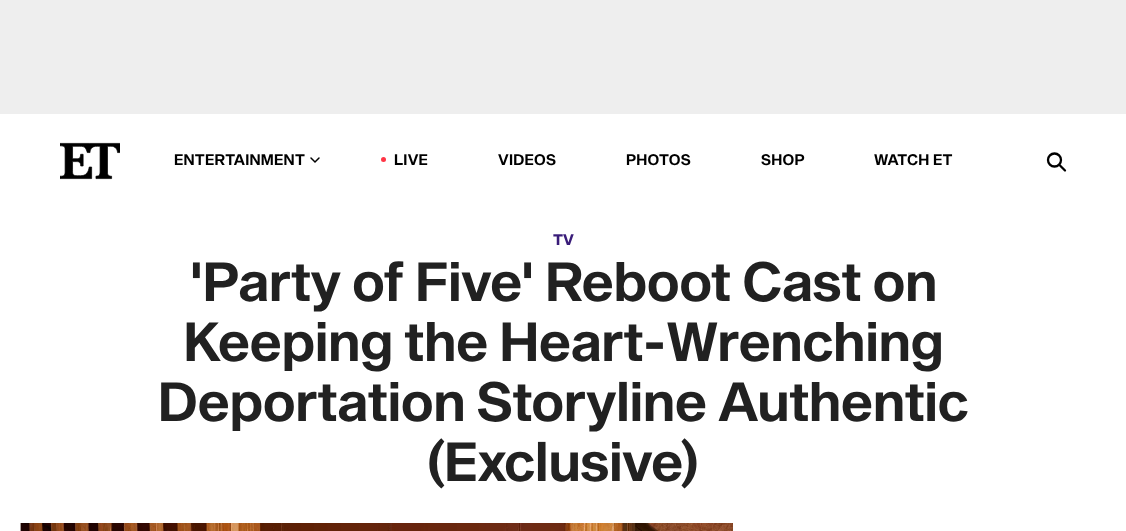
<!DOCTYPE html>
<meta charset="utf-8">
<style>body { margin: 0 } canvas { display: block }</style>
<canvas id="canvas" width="1126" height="531"></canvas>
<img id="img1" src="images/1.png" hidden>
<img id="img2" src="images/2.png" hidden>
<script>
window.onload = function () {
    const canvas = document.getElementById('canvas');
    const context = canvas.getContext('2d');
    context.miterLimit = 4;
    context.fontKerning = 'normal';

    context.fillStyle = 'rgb(255, 255, 255)';
    context.fillRect(0, 0, 1126, 531);
    context.fillStyle = 'rgb(238, 238, 238)';
    context.fillRect(0, 0, 1126, 114);
    context.drawImage(document.getElementById('img1'), 60, 142, 60, 38);
    context.beginPath();
    context.moveTo(319, 158);
    context.lineTo(315, 162);
    context.lineTo(311, 158);
    context.strokeStyle = 'rgb(0, 0, 0)';
    context.lineWidth = 1.5;
    context.lineCap = 'round';
    context.stroke();
    context.fillStyle = 'rgb(255, 53, 69)';
    context.beginPath();
    context.arc(383.5, 159.5, 2.5, 0, 2 * Math.PI);
    context.fill();
    context.beginPath();
    context.arc(1054.5, 160, 6.5, 0, 2 * Math.PI);
    context.lineWidth = 2.3;
    context.stroke();
    context.beginPath();
    context.moveTo(1060, 165.5);
    context.lineTo(1065, 170.5);
    context.lineJoin = 'round';
    context.stroke();
    context.drawImage(document.getElementById('img2'), 20, 523, 713, 8);
    context.letterSpacing = '0.25px';
    context.font = '600 15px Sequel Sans';
    context.fillStyle = 'rgb(0, 0, 0)';
    context.fillText('ENTERTAINMENT', 174, 165);
    context.fillText('LIVE', 394, 165);
    context.fillText('VIDEOS', 498, 165);
    context.fillText('PHOTOS', 626, 165);
    context.fillText('SHOP', 761, 165);
    context.fillText('WATCH ET', 874, 165);
    context.letterSpacing = '0px';
    context.font = 'bold 15px Sequel Sans';
    context.fillStyle = 'rgb(57, 28, 121)';
    context.fillText('TV', 553, 245);
    context.font = '600 54px Sequel Sans';
    context.fillStyle = 'rgb(33, 33, 33)';
    context.fillText('\'Party of Five\' Reboot Cast on', 190, 301);
    context.fillText('Keeping the Heart-Wrenching', 184, 361);
    context.fillText('Deportation Storyline Authentic', 158, 421);
    context.fillText('(Exclusive)', 427, 481);
};
</script>
